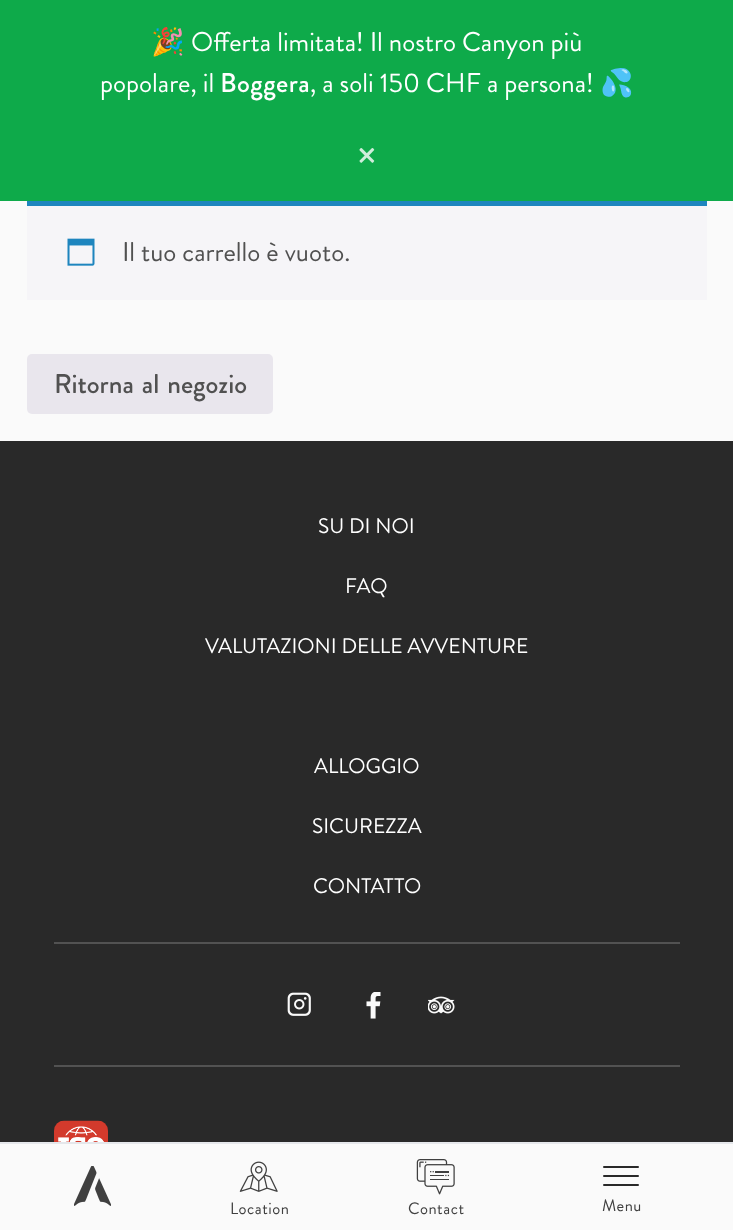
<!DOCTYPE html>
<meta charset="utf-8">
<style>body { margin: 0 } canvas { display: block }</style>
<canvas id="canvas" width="733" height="1230"></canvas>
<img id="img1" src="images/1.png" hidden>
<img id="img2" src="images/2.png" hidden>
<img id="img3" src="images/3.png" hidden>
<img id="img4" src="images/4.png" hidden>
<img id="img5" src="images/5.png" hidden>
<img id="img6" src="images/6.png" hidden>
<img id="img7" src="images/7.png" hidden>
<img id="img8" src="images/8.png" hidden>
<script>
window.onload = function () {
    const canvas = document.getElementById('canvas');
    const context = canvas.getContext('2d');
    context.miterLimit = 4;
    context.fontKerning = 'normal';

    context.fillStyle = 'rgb(250, 250, 250)';
    context.fillRect(0, 0, 733, 1230);
    context.fillStyle = 'rgb(14, 170, 74)';
    context.fillRect(0, 0, 733, 201);
    context.fillStyle = 'rgb(246, 245, 248)';
    context.fillRect(27, 206, 680, 94);
    context.fillStyle = 'rgb(30, 133, 190)';
    context.fillRect(27, 201, 680, 5);
    context.drawImage(document.getElementById('img1'), 67, 238, 28, 28);
    context.fillStyle = 'rgb(233, 230, 237)';
    context.beginPath();
    context.roundRect(27, 354, 246, 60, 5);
    context.fill();
    context.fillStyle = 'rgb(41, 41, 41)';
    context.fillRect(0, 441, 733, 701);
    context.fillStyle = 'rgb(82, 82, 82)';
    context.fillRect(54, 942, 626, 2);
    context.drawImage(document.getElementById('img2'), 287, 992, 24, 24);
    context.drawImage(document.getElementById('img3'), 366, 992, 15, 27);
    context.drawImage(document.getElementById('img4'), 428, 996, 27, 18);
    context.fillRect(54, 1065, 626, 2);
    context.drawImage(document.getElementById('img5'), 54, 1120, 54, 22);
    context.fillStyle = 'rgb(229, 231, 235)';
    context.fillRect(0, 1142, 733, 2);
    context.drawImage(document.getElementById('img6'), 74, 1166, 37, 40);
    context.drawImage(document.getElementById('img7'), 239, 1161, 39, 31);
    context.drawImage(document.getElementById('img8'), 416, 1159, 39, 36);
    context.fillStyle = 'rgb(41, 41, 41)';
    context.beginPath();
    context.roundRect(603, 1166, 36, 2, 1);
    context.fill();
    context.beginPath();
    context.roundRect(603, 1175, 36, 2, 1);
    context.fill();
    context.beginPath();
    context.roundRect(603, 1184, 36, 2, 1);
    context.fill();
    context.font = '27px Noto Color Emoji';
    context.fillStyle = 'rgb(255, 255, 255)';
    context.fillText('🎉', 151, 51);
    context.font = '27px Brandon Grotesque';
    context.fillText('Offerta limitata! Il nostro Canyon più', 191, 51);
    context.fillText('popolare, il', 100, 92);
    context.letterSpacing = '0.5px';
    context.font = '500 27px Brandon Grotesque';
    context.fillText('Boggera', 220, 92);
    context.letterSpacing = '0px';
    context.font = '27px Brandon Grotesque';
    context.fillText(', a soli 150 CHF a persona!', 310, 92);
    context.font = '27px Noto Color Emoji';
    context.fillText('💦', 600, 92);
    context.font = '45px Brandon Grotesque';
    context.fillStyle = 'rgb(207, 238, 219)';
    context.fillText('×', 356, 171);
    context.font = '27px Brandon Grotesque';
    context.fillStyle = 'rgb(81, 81, 81)';
    context.fillText('Il tuo carrello è vuoto.', 122, 261);
    context.wordSpacing = '2px';
    context.font = '500 27px Brandon Grotesque';
    context.fillText('Ritorna al negozio', 54, 393);
    context.wordSpacing = '0px';
    context.font = '21px Brandon Grotesque';
    context.fillStyle = 'rgb(255, 255, 255)';
    context.fillText('SU DI NOI', 318, 533);
    context.fillText('FAQ', 345, 593);
    context.fillText('VALUTAZIONI DELLE AVVENTURE', 205, 653);
    context.fillText('ALLOGGIO', 314, 773);
    context.fillText('SICUREZZA', 312, 833);
    context.fillText('CONTATTO', 313, 893);
    context.letterSpacing = '0.5px';
    context.font = '16.5px Brandon Grotesque';
    context.fillStyle = 'rgb(64, 64, 64)';
    context.fillText('Location', 230, 1214);
    context.fillText('Contact', 408, 1214);
    context.fillText('Menu', 602, 1211);
};
</script>
